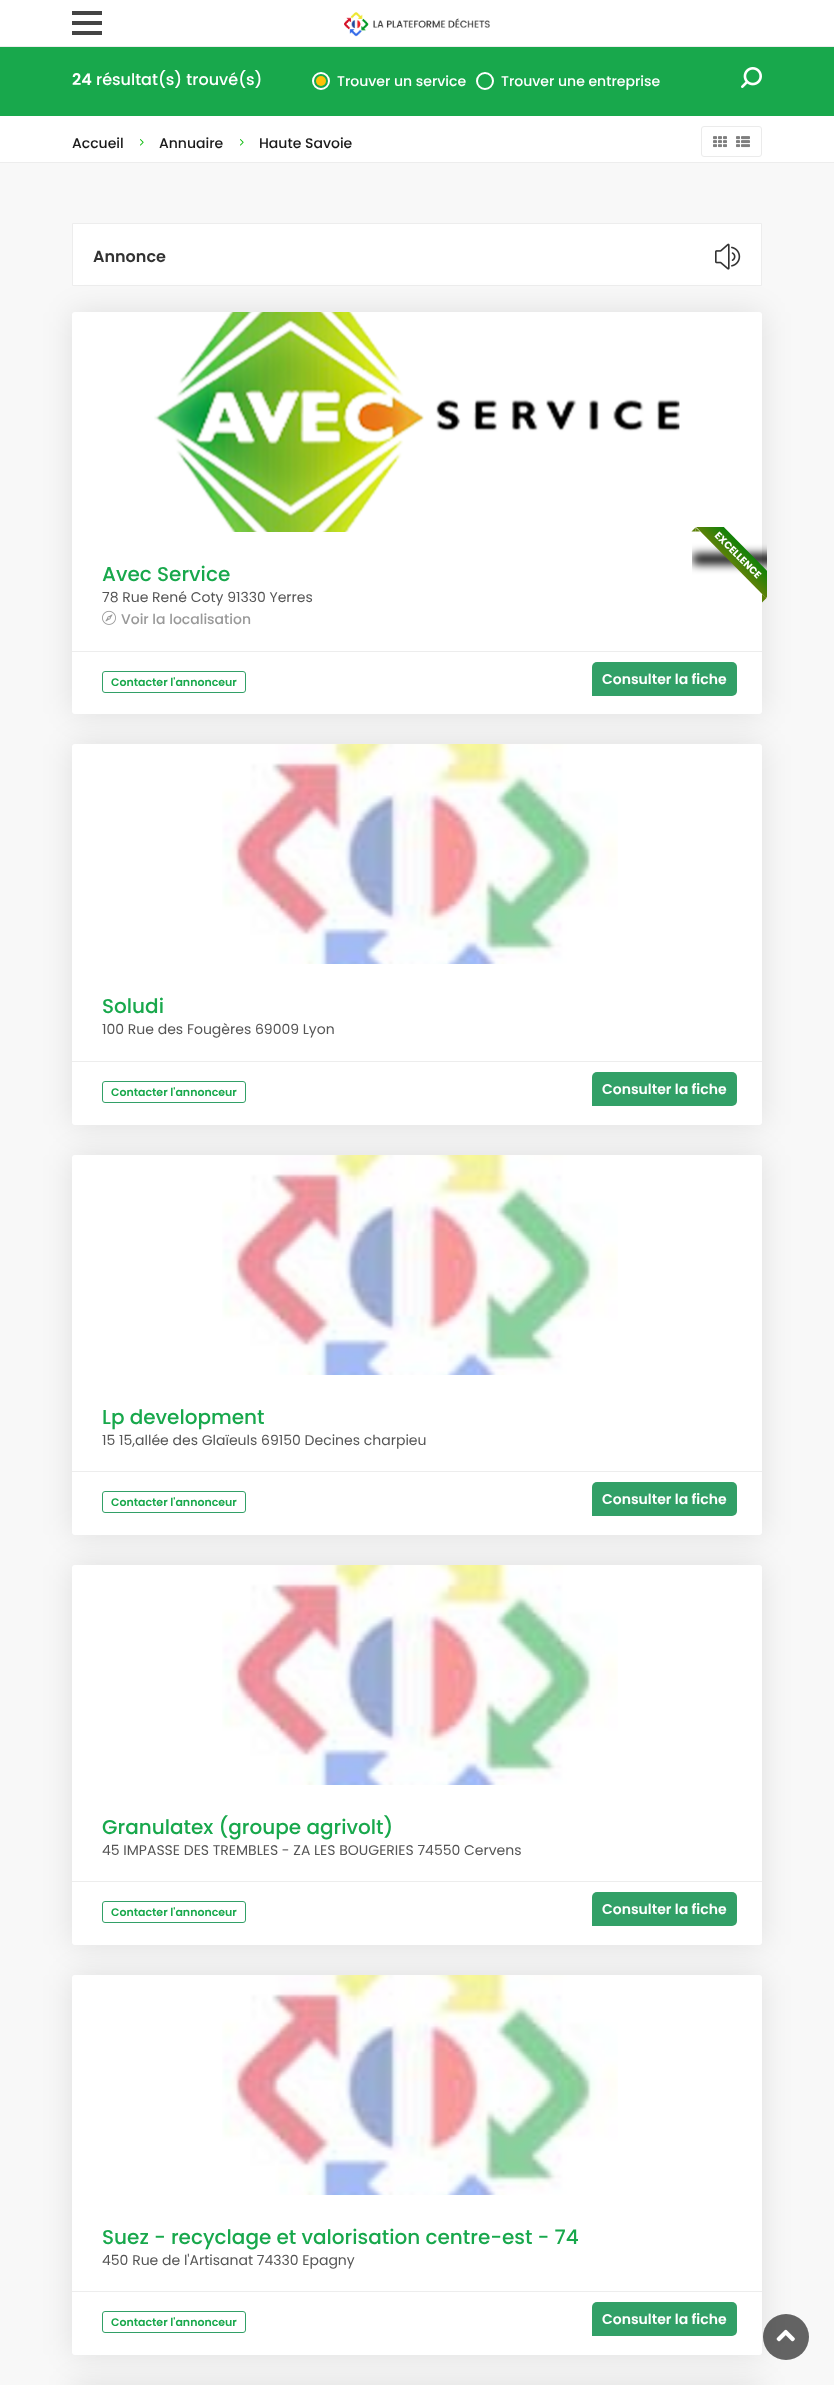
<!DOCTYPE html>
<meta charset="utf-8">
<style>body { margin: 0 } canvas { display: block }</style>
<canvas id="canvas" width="834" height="2385"></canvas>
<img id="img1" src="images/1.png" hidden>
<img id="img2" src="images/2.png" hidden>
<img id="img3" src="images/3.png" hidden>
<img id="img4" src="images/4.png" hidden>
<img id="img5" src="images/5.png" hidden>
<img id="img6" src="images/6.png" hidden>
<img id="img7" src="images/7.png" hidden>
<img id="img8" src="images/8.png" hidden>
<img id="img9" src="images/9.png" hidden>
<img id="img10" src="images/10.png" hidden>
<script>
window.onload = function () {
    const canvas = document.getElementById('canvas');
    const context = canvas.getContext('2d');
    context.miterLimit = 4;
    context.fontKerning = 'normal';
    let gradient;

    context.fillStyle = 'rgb(248, 248, 248)';
    context.fillRect(0, 0, 834, 2385);
    context.fillStyle = 'rgb(255, 255, 255)';
    context.fillRect(0, 0, 834, 46);
    context.fillStyle = 'rgb(237, 237, 237)';
    context.fillRect(0, 46, 834, 1);
    context.fillStyle = 'rgb(68, 68, 68)';
    context.fillRect(72, 21, 30, 4);
    context.fillRect(72, 11, 30, 4);
    context.fillRect(72, 31, 30, 4);
    context.drawImage(document.getElementById('img1'), 344, 12, 146, 25);
    context.fillStyle = 'rgb(24, 168, 76)';
    context.fillRect(0, 47, 834, 69);
    context.beginPath();
    context.arc(321, 81, 8, 0, 2 * Math.PI);
    context.strokeStyle = 'rgb(255, 255, 255)';
    context.lineWidth = 2;
    context.stroke();
    context.fillStyle = 'rgb(255, 193, 7)';
    context.beginPath();
    context.arc(321, 81, 5, 0, 2 * Math.PI);
    context.fill();
    context.beginPath();
    context.arc(485, 81, 8, 0, 2 * Math.PI);
    context.stroke();
    context.drawImage(document.getElementById('img2'), 741, 67, 21, 21);
    context.fillStyle = 'rgb(255, 255, 255)';
    context.fillRect(0, 116, 834, 46);
    context.fillStyle = 'rgb(237, 237, 237)';
    context.fillRect(0, 162, 834, 1);
    context.drawImage(document.getElementById('img3'), 140, 139, 4, 7);
    context.drawImage(document.getElementById('img3'), 240, 139, 4, 7);
    context.beginPath();
    context.roundRect(701.5, 126.5, 60, 30, 2.5);
    context.strokeStyle = 'rgb(235, 235, 235)';
    context.lineWidth = 1;
    context.stroke();
    context.drawImage(document.getElementById('img4'), 713, 136, 14, 12);
    context.drawImage(document.getElementById('img5'), 736, 136, 14, 12);
    context.fillStyle = 'rgb(255, 255, 255)';
    context.beginPath();
    context.rect(72.5, 223.5, 689, 62);
    context.fill();
    context.strokeStyle = 'rgb(237, 237, 237)';
    context.stroke();
    context.drawImage(document.getElementById('img6'), 715, 243, 26, 27);
    context.fillStyle = 'rgba(0, 0, 0, 0.1)';
    context.filter = 'blur(15px)';
    context.beginPath();
    context.roundRect(72, 312, 690, 402, 3);
    context.fill();
    context.filter = 'none';
    context.fillStyle = 'rgb(255, 255, 255)';
    context.beginPath();
    context.roundRect(72, 312, 690, 402, 3);
    context.fill();
    context.drawImage(document.getElementById('img7'), 154, 312, 526, 220);
    context.save();
    context.beginPath();
    context.rect(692, 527, 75, 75);
    context.clip();
    context.fillStyle = 'rgb(0, 0, 0)';
    context.filter = 'blur(5px)';
    context.beginPath();
    context.rect(693, 554, 90, 10);
    context.fill();
    context.filter = 'none';
    context.restore();
    context.save();
    context.beginPath();
    context.rect(692, 527, 75, 75);
    context.clip();
    gradient = context.createLinearGradient(745, 549, 731, 563);
    gradient.addColorStop(0, 'rgb(18, 129, 8)');
    gradient.addColorStop(1, 'rgb(93, 129, 8)');
    context.fillStyle = gradient;
    context.beginPath();
    context.moveTo(710, 513);
    context.lineTo(780, 584);
    context.lineTo(766, 598);
    context.lineTo(696, 527);
    context.closePath();
    context.fill();
    context.restore();
    context.fillStyle = 'rgb(93, 129, 8)';
    context.beginPath();
    context.moveTo(695.5, 527.5);
    context.lineTo(700, 531.5);
    context.lineTo(695.5, 531.5);
    context.closePath();
    context.fill();
    context.beginPath();
    context.moveTo(691.5, 531.5);
    context.lineTo(695.5, 527.5);
    context.lineTo(695.5, 531.5);
    context.closePath();
    context.fill();
    context.beginPath();
    context.moveTo(762, 594);
    context.lineTo(766.5, 598);
    context.lineTo(762, 598);
    context.closePath();
    context.moveTo(766.5, 598);
    context.lineTo(762, 602.5);
    context.lineTo(762, 598);
    context.closePath();
    context.fill();
    context.drawImage(document.getElementById('img8'), 102, 610, 14, 15);
    context.fillStyle = 'rgb(237, 237, 237)';
    context.fillRect(72, 651, 690, 1);
    context.beginPath();
    context.roundRect(102.5, 671.5, 143, 21, 2.5);
    context.strokeStyle = 'rgb(50, 160, 103)';
    context.stroke();
    context.fillStyle = 'rgb(50, 160, 103)';
    context.beginPath();
    context.roundRect(592, 662, 145, 34, [5, 5, 5, 0]);
    context.fill();
    context.fillStyle = 'rgba(0, 0, 0, 0.1)';
    context.filter = 'blur(15px)';
    context.beginPath();
    context.roundRect(72, 744, 690, 381, 3);
    context.fill();
    context.filter = 'none';
    context.fillStyle = 'rgb(255, 255, 255)';
    context.beginPath();
    context.roundRect(72, 744, 690, 381, 3);
    context.fill();
    context.drawImage(document.getElementById('img9'), 222, 744, 396, 220);
    context.fillStyle = 'rgb(237, 237, 237)';
    context.fillRect(72, 1061, 690, 1);
    context.beginPath();
    context.roundRect(102.5, 1081.5, 143, 21, 2.5);
    context.stroke();
    context.fillStyle = 'rgb(50, 160, 103)';
    context.beginPath();
    context.roundRect(592, 1072, 145, 34, [5, 5, 5, 0]);
    context.fill();
    context.fillStyle = 'rgba(0, 0, 0, 0.1)';
    context.filter = 'blur(15px)';
    context.beginPath();
    context.roundRect(72, 1155, 690, 380, 3);
    context.fill();
    context.filter = 'none';
    context.fillStyle = 'rgb(255, 255, 255)';
    context.beginPath();
    context.roundRect(72, 1155, 690, 380, 3);
    context.fill();
    context.drawImage(document.getElementById('img9'), 222, 1155, 396, 220);
    context.fillStyle = 'rgb(237, 237, 237)';
    context.fillRect(72, 1471, 690, 1);
    context.beginPath();
    context.roundRect(102.5, 1491.5, 143, 21, 2.5);
    context.stroke();
    context.fillStyle = 'rgb(50, 160, 103)';
    context.beginPath();
    context.roundRect(592, 1482, 145, 34, [5, 5, 5, 0]);
    context.fill();
    context.fillStyle = 'rgba(0, 0, 0, 0.1)';
    context.filter = 'blur(15px)';
    context.beginPath();
    context.roundRect(72, 1565, 690, 380, 3);
    context.fill();
    context.filter = 'none';
    context.fillStyle = 'rgb(255, 255, 255)';
    context.beginPath();
    context.roundRect(72, 1565, 690, 380, 3);
    context.fill();
    context.drawImage(document.getElementById('img9'), 222, 1565, 396, 220);
    context.fillStyle = 'rgb(237, 237, 237)';
    context.fillRect(72, 1881, 690, 1);
    context.beginPath();
    context.roundRect(102.5, 1901.5, 143, 21, 2.5);
    context.stroke();
    context.fillStyle = 'rgb(50, 160, 103)';
    context.beginPath();
    context.roundRect(592, 1892, 145, 34, [5, 5, 5, 0]);
    context.fill();
    context.fillStyle = 'rgba(0, 0, 0, 0.1)';
    context.filter = 'blur(15px)';
    context.beginPath();
    context.roundRect(72, 1975, 690, 380, 3);
    context.fill();
    context.filter = 'none';
    context.fillStyle = 'rgb(255, 255, 255)';
    context.beginPath();
    context.roundRect(72, 1975, 690, 380, 3);
    context.fill();
    context.drawImage(document.getElementById('img9'), 222, 1975, 396, 220);
    context.fillStyle = 'rgb(237, 237, 237)';
    context.fillRect(72, 2291, 690, 1);
    context.beginPath();
    context.roundRect(102.5, 2311.5, 143, 21, 2.5);
    context.stroke();
    context.fillStyle = 'rgb(50, 160, 103)';
    context.beginPath();
    context.roundRect(592, 2302, 145, 34, [5, 5, 5, 0]);
    context.fill();
    context.fillStyle = 'rgba(0, 0, 0, 0.1)';
    context.filter = 'blur(15px)';
    context.beginPath();
    context.roundRect(72, 2385, 690, 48, 3);
    context.fill();
    context.filter = 'none';
    context.fillStyle = 'rgba(0, 0, 0, 0.6)';
    context.beginPath();
    context.arc(786, 2337, 23, 0, 2 * Math.PI);
    context.fill();
    context.drawImage(document.getElementById('img10'), 776, 2329, 19, 13);
    context.font = '600 16px Poppins';
    context.fillStyle = 'rgb(255, 255, 255)';
    context.fillText('24', 72, 85);
    context.font = '500 16px Poppins';
    context.fillText('résultat(s) trouvé(s)', 96, 85);
    context.font = '500 14px Poppins';
    context.fillText('Trouver un service', 337, 86);
    context.fillText('Trouver une entreprise', 501, 86);
    context.fillStyle = 'rgb(26, 26, 26)';
    context.fillText('Accueil', 72, 148);
    context.fillText('Annuaire', 159, 148);
    context.fillText('Haute Savoie', 259, 148);
    context.font = '600 16px Poppins';
    context.fillStyle = 'rgb(51, 51, 51)';
    context.fillText('Annonce', 93, 262);
    context.font = '500 20px Poppins';
    context.fillStyle = 'rgb(24, 168, 76)';
    context.fillText('Avec Service', 102, 581);
    context.font = 'bold 10px Poppins';
    context.fillStyle = 'rgb(255, 255, 255)';
    context.save();
    context.translate(714, 536);
    context.rotate(45 * Math.PI / 180);
    context.fillText('EXCELLENCE', 0, 0);
    context.restore();
    context.font = '14px Poppins';
    context.fillStyle = 'rgb(85, 85, 85)';
    context.fillText('78 Rue René Coty 91330 Yerres', 102, 602);
    context.font = '500 14px Poppins';
    context.fillStyle = 'rgb(153, 153, 153)';
    context.fillText('Voir la localisation', 121, 624);
    context.font = '600 11px Poppins';
    context.fillStyle = 'rgb(24, 168, 76)';
    context.fillText('Contacter l\'annonceur', 111, 686);
    context.font = '600 14px Poppins';
    context.fillStyle = 'rgb(255, 255, 255)';
    context.fillText('Consulter la fiche', 602, 684);
    context.font = '500 20px Poppins';
    context.fillStyle = 'rgb(24, 168, 76)';
    context.fillText('Soludi', 102, 1013);
    context.font = '14px Poppins';
    context.fillStyle = 'rgb(85, 85, 85)';
    context.fillText('100 Rue des Fougères 69009 Lyon', 102, 1034);
    context.font = '600 11px Poppins';
    context.fillStyle = 'rgb(24, 168, 76)';
    context.fillText('Contacter l\'annonceur', 111, 1096);
    context.font = '600 14px Poppins';
    context.fillStyle = 'rgb(255, 255, 255)';
    context.fillText('Consulter la fiche', 602, 1094);
    context.font = '500 20px Poppins';
    context.fillStyle = 'rgb(24, 168, 76)';
    context.fillText('Lp development', 102, 1424);
    context.font = '14px Poppins';
    context.fillStyle = 'rgb(85, 85, 85)';
    context.fillText('15 15,allée des Glaïeuls 69150 Decines charpieu', 102, 1445);
    context.font = '600 11px Poppins';
    context.fillStyle = 'rgb(24, 168, 76)';
    context.fillText('Contacter l\'annonceur', 111, 1506);
    context.font = '600 14px Poppins';
    context.fillStyle = 'rgb(255, 255, 255)';
    context.fillText('Consulter la fiche', 602, 1504);
    context.font = '500 20px Poppins';
    context.fillStyle = 'rgb(24, 168, 76)';
    context.fillText('Granulatex (groupe agrivolt)', 102, 1834);
    context.font = '14px Poppins';
    context.fillStyle = 'rgb(85, 85, 85)';
    context.fillText('45 IMPASSE DES TREMBLES - ZA LES BOUGERIES 74550 Cervens', 102, 1855);
    context.font = '600 11px Poppins';
    context.fillStyle = 'rgb(24, 168, 76)';
    context.fillText('Contacter l\'annonceur', 111, 1916);
    context.font = '600 14px Poppins';
    context.fillStyle = 'rgb(255, 255, 255)';
    context.fillText('Consulter la fiche', 602, 1914);
    context.font = '500 20px Poppins';
    context.fillStyle = 'rgb(24, 168, 76)';
    context.fillText('Suez - recyclage et valorisation centre-est - 74', 102, 2244);
    context.font = '14px Poppins';
    context.fillStyle = 'rgb(85, 85, 85)';
    context.fillText('450 Rue de l\'Artisanat 74330 Epagny', 102, 2265);
    context.font = '600 11px Poppins';
    context.fillStyle = 'rgb(24, 168, 76)';
    context.fillText('Contacter l\'annonceur', 111, 2326);
    context.font = '600 14px Poppins';
    context.fillStyle = 'rgb(255, 255, 255)';
    context.fillText('Consulter la fiche', 602, 2324);
};
</script>
